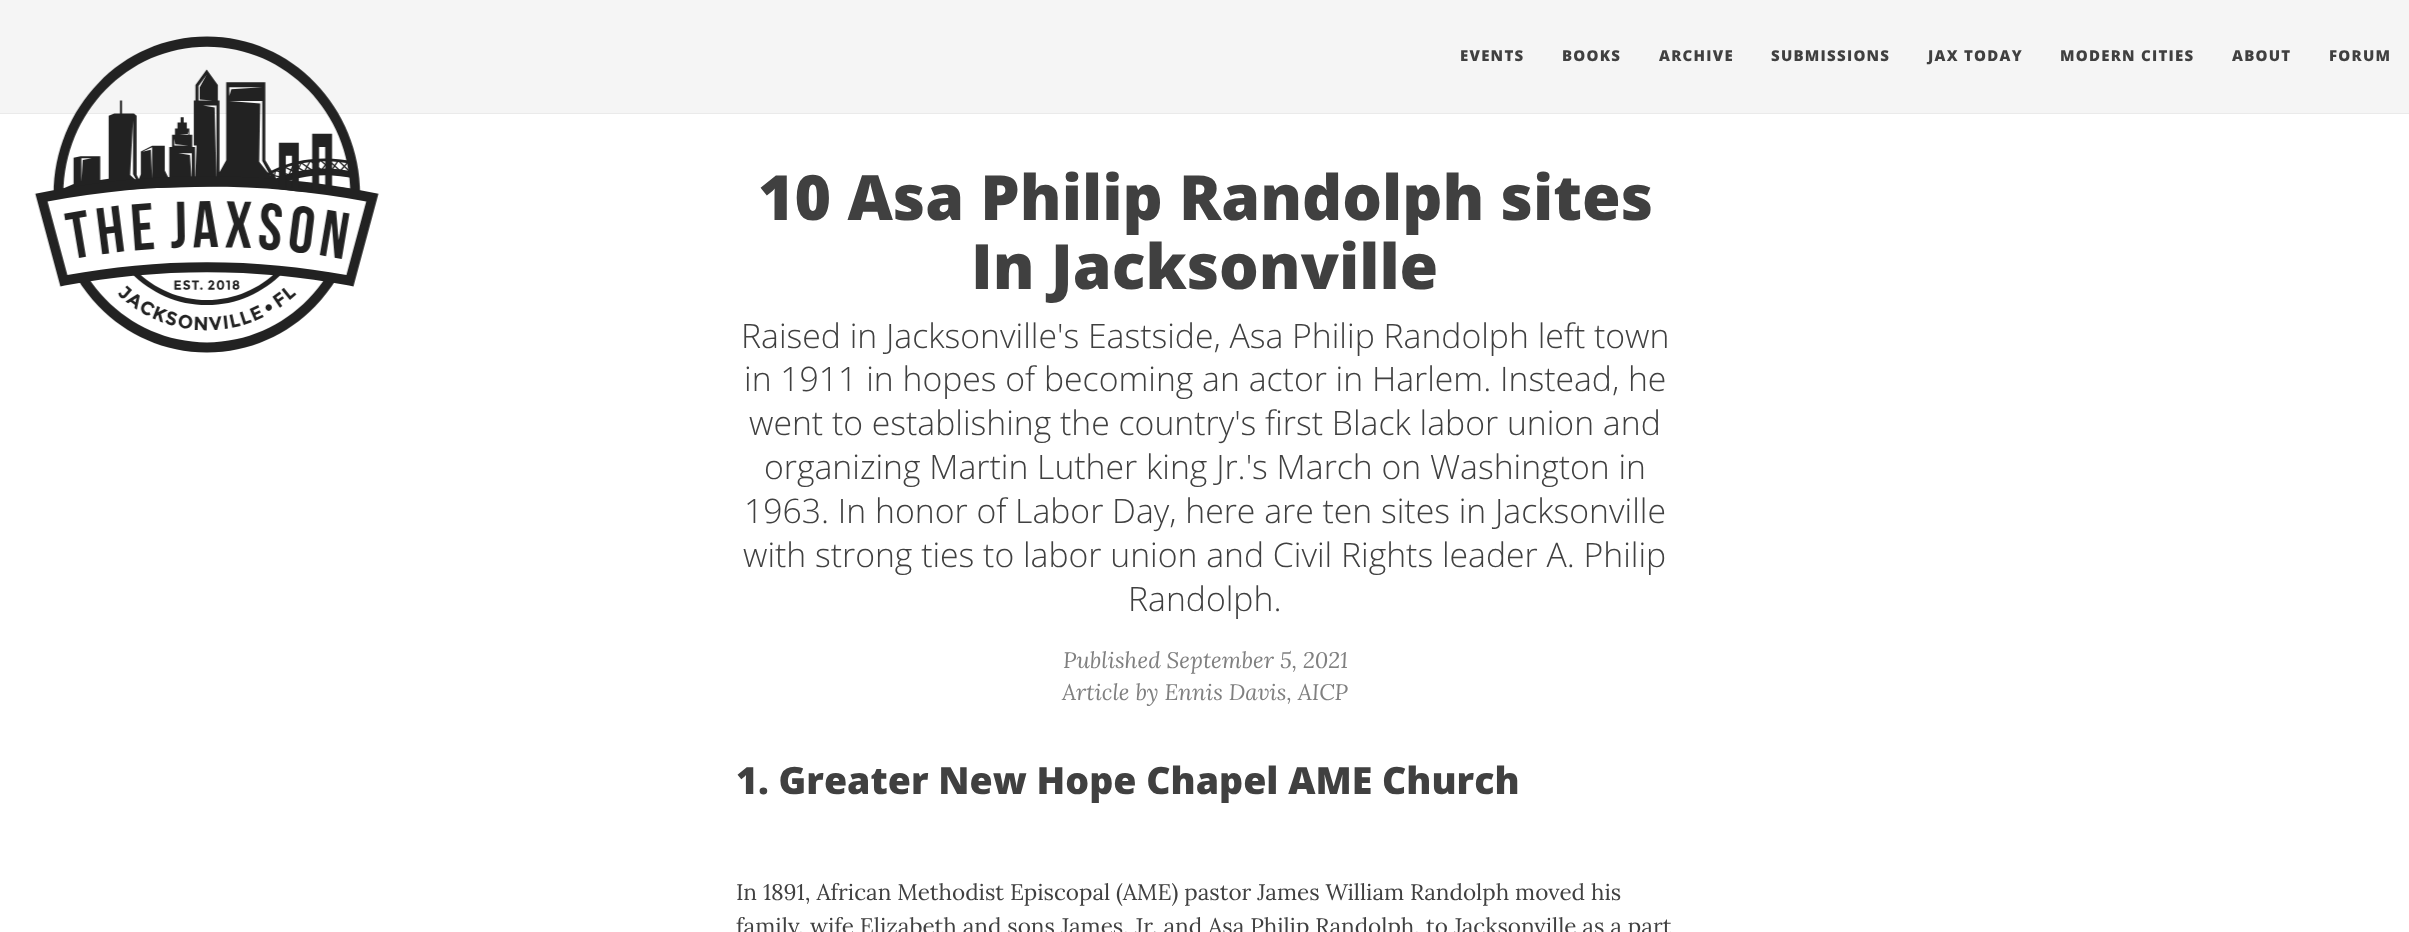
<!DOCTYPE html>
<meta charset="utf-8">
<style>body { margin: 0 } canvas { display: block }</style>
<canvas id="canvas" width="2409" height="932"></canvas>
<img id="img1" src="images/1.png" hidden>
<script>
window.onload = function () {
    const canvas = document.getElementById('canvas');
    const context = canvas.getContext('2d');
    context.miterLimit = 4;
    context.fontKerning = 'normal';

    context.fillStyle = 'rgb(255, 255, 255)';
    context.fillRect(0, 0, 2409, 932);
    context.fillStyle = 'rgb(245, 245, 245)';
    context.fillRect(0, 0, 2409, 113);
    context.fillStyle = 'rgb(234, 234, 234)';
    context.fillRect(0, 113, 2409, 1);
    context.drawImage(document.getElementById('img1'), 34, 36, 345, 317);
    context.letterSpacing = '1.25px';
    context.font = '800 15px Open Sans';
    context.fillStyle = 'rgb(64, 64, 64)';
    context.fillText('EVENTS', 1460, 61);
    context.fillText('BOOKS', 1562, 61);
    context.fillText('ARCHIVE', 1659, 61);
    context.fillText('SUBMISSIONS', 1771, 61);
    context.fillText('JAX TODAY', 1928, 61);
    context.fillText('MODERN CITIES', 2060, 61);
    context.fillText('ABOUT', 2232, 61);
    context.fillText('FORUM', 2329, 61);
    context.letterSpacing = '0px';
    context.font = '800 62.5px Open Sans';
    context.fillText('10 Asa Philip Randolph sites', 758, 220);
    context.fillText('In Jacksonville', 971, 289);
    context.font = '300 33.75px Open Sans';
    context.fillText('Raised in Jacksonville\'s Eastside, Asa Philip Randolph left town', 741, 348);
    context.fillText('in 1911 in hopes of becoming an actor in Harlem. Instead, he', 744, 391);
    context.fillText('went to establishing the country\'s first Black labor union and', 749, 435);
    context.fillText('organizing Martin Luther king Jr.\'s March on Washington in', 764, 479);
    context.fillText('1963. In honor of Labor Day, here are ten sites in Jacksonville', 744, 523);
    context.fillText('with strong ties to labor union and Civil Rights leader A. Philip', 743, 567);
    context.fillText('Randolph.', 1128, 611);
    context.font = 'italic 22.5px Lora';
    context.fillStyle = 'rgb(128, 128, 128)';
    context.fillText('Published September 5, 2021', 1063, 668);
    context.fillText('Article by Ennis Davis, AICP', 1062, 700);
    context.font = '800 37.5px Open Sans';
    context.fillStyle = 'rgb(64, 64, 64)';
    context.fillText('1. Greater New Hope Chapel AME Church', 736, 794);
    context.font = '22.5px Lora';
    context.fillText('In 1891, African Methodist Episcopal (AME) pastor James William Randolph moved his', 736, 900);
    context.fillText('family, wife Elizabeth and sons James, Jr. and Asa Philip Randolph, to Jacksonville as a part', 736, 934);
};
</script>
